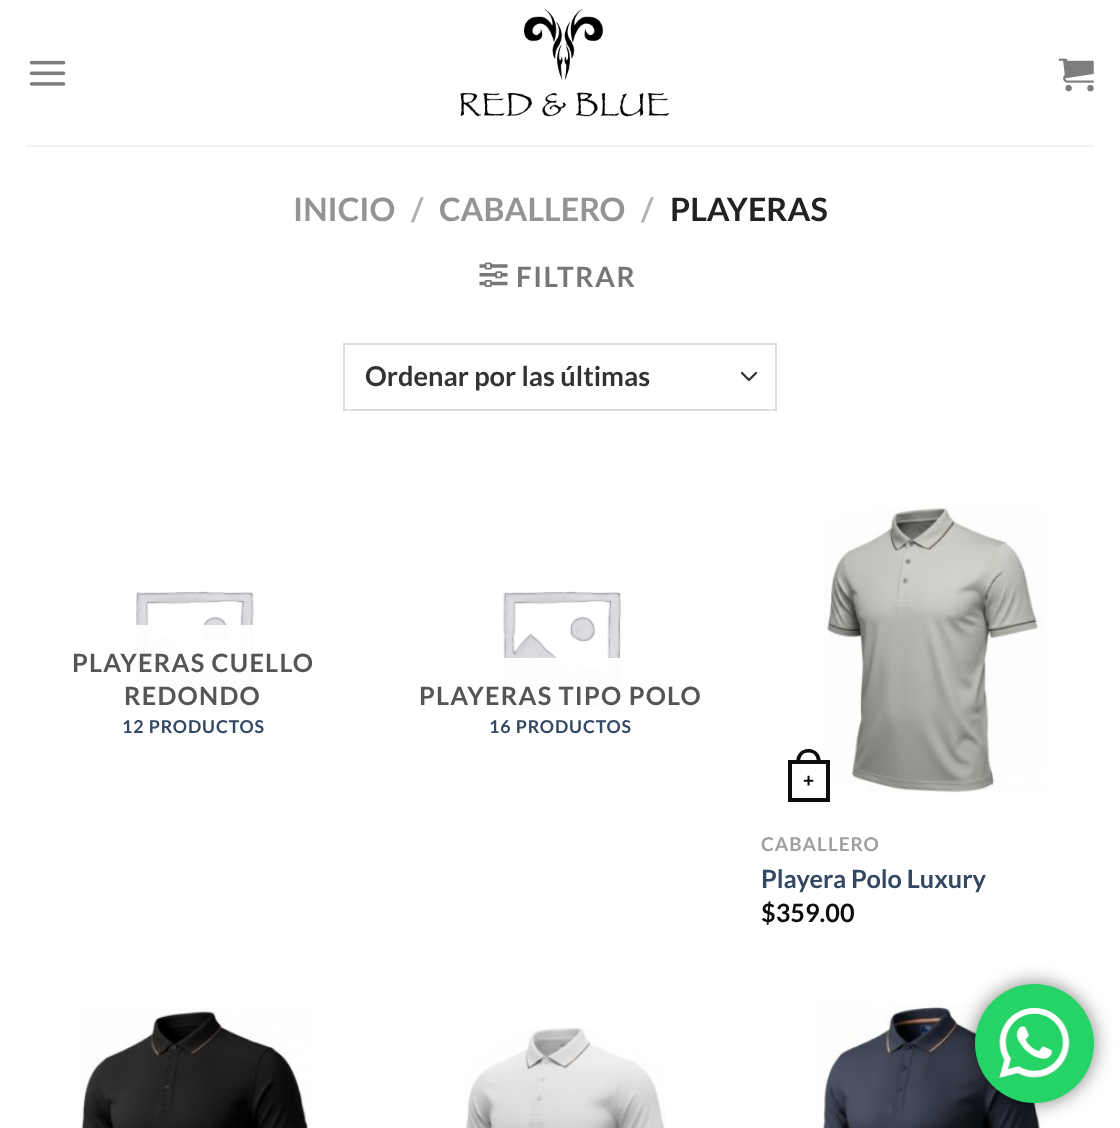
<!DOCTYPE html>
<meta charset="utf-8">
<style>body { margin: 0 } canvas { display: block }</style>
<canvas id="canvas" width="1120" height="1128"></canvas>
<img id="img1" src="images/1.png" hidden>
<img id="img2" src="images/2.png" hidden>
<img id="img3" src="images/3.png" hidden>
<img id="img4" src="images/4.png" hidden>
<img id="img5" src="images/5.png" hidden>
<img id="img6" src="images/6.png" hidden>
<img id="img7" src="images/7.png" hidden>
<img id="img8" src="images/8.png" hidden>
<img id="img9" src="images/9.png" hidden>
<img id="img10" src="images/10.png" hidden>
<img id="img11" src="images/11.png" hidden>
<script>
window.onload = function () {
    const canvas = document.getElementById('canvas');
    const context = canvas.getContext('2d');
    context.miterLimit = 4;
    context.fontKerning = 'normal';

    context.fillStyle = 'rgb(255, 255, 255)';
    context.fillRect(0, 0, 1120, 1128);
    context.drawImage(document.getElementById('img1'), 29, 60, 37, 26);
    context.drawImage(document.getElementById('img2'), 460, 8, 209, 109);
    context.drawImage(document.getElementById('img3'), 1058, 58, 36, 34);
    context.fillStyle = 'rgb(241, 241, 241)';
    context.fillRect(26, 145, 1068, 2);
    context.drawImage(document.getElementById('img4'), 479, 262, 29, 25);
    context.beginPath();
    context.moveTo(742, 373);
    context.lineTo(749, 380);
    context.lineTo(756, 373);
    context.strokeStyle = 'rgb(51, 51, 51)';
    context.lineWidth = 2.3;
    context.lineCap = 'round';
    context.lineJoin = 'round';
    context.stroke();
    context.strokeStyle = 'rgb(221, 221, 221)';
    context.lineWidth = 2;
    context.lineJoin = 'miter';
    context.strokeRect(344, 344, 432, 66);
    context.drawImage(document.getElementById('img5'), 135, 591, 119, 120);
    context.fillStyle = 'rgba(255, 255, 255, 0.95)';
    context.fillRect(135, 625, 119, 86);
    context.drawImage(document.getElementById('img6'), 503, 591, 118, 120);
    context.fillRect(503, 658, 118, 53);
    context.drawImage(document.getElementById('img7'), 824, 507, 221, 287);
    context.strokeStyle = 'rgb(13, 13, 13)';
    context.lineWidth = 4;
    context.strokeRect(790, 762, 38, 38);
    context.fillStyle = 'rgb(13, 13, 13)';
    context.beginPath();
    context.moveTo(808.5, 749);
    context.bezierCurveTo(817, 749, 821, 755.5, 821, 763);
    context.lineTo(796, 763);
    context.bezierCurveTo(796, 755.5, 800, 749, 808.5, 749);
    context.closePath();
    context.moveTo(808.5, 752.5);
    context.bezierCurveTo(815, 752.5, 817, 757.5, 817, 763);
    context.lineTo(800, 763);
    context.bezierCurveTo(800, 757.5, 802, 752.5, 808.5, 752.5);
    context.closePath();
    context.fill('evenodd');
    context.drawImage(document.getElementById('img8'), 80, 1006, 230, 122);
    context.drawImage(document.getElementById('img9'), 465, 1027, 201, 101);
    context.drawImage(document.getElementById('img10'), 816, 1003, 229, 125);
    context.fillStyle = 'rgba(0, 0, 0, 0.5)';
    context.filter = 'blur(9.5px)';
    context.beginPath();
    context.roundRect(975, 984, 119, 119, 59.5);
    context.fill();
    context.filter = 'none';
    context.fillStyle = 'rgb(37, 211, 102)';
    context.beginPath();
    context.arc(1034.5, 1043.5, 59.5, 0, 2 * Math.PI);
    context.fill();
    context.drawImage(document.getElementById('img11'), 999, 1008, 71, 70);
    context.font = 'bold 32.25px Lato';
    context.fillStyle = 'rgb(148, 148, 148)';
    context.fillText('INICIO', 293, 221);
    context.fillStyle = 'rgb(178, 178, 178)';
    context.fillText('/', 411, 221);
    context.fillStyle = 'rgb(148, 148, 148)';
    context.fillText('CABALLERO', 439, 221);
    context.fillStyle = 'rgb(178, 178, 178)';
    context.fillText('/', 641, 221);
    context.fillStyle = 'rgb(34, 34, 34)';
    context.fillText('PLAYERAS', 670, 221);
    context.letterSpacing = '1.5px';
    context.font = 'bold 28px Lato';
    context.fillStyle = 'rgb(119, 119, 119)';
    context.fillText('FILTRAR', 516, 287);
    context.letterSpacing = '0px';
    context.font = 'bold 27.25px Lato';
    context.fillStyle = 'rgb(51, 51, 51)';
    context.fillText('Ordenar por las últimas', 365, 386);
    context.letterSpacing = '1.25px';
    context.font = 'bold 25.25px Lato';
    context.fillStyle = 'rgb(85, 85, 85)';
    context.fillText('PLAYERAS CUELLO', 72, 672);
    context.fillText('REDONDO', 124, 705);
    context.letterSpacing = '0.9px';
    context.font = 'bold 17.75px Lato';
    context.fillStyle = 'rgb(51, 72, 98)';
    context.fillText('12 PRODUCTOS', 122, 733);
    context.letterSpacing = '1.25px';
    context.font = 'bold 25.25px Lato';
    context.fillStyle = 'rgb(85, 85, 85)';
    context.fillText('PLAYERAS TIPO POLO', 419, 705);
    context.letterSpacing = '0.9px';
    context.font = 'bold 17.75px Lato';
    context.fillStyle = 'rgb(51, 72, 98)';
    context.fillText('16 PRODUCTOS', 489, 733);
    context.letterSpacing = '0px';
    context.font = 'bold 19px Liberation Sans';
    context.fillStyle = 'rgb(13, 13, 13)';
    context.fillText('+', 803, 787);
    context.letterSpacing = '1px';
    context.font = 'bold 19px Lato';
    context.fillStyle = 'rgb(160, 160, 160)';
    context.fillText('CABALLERO', 761, 851);
    context.letterSpacing = '0px';
    context.font = 'bold 25.25px Lato';
    context.fillStyle = 'rgb(51, 72, 98)';
    context.fillText('Playera Polo Luxury', 761, 888);
    context.fillStyle = 'rgb(13, 13, 13)';
    context.fillText('$359.00', 761, 922);
};
</script>
